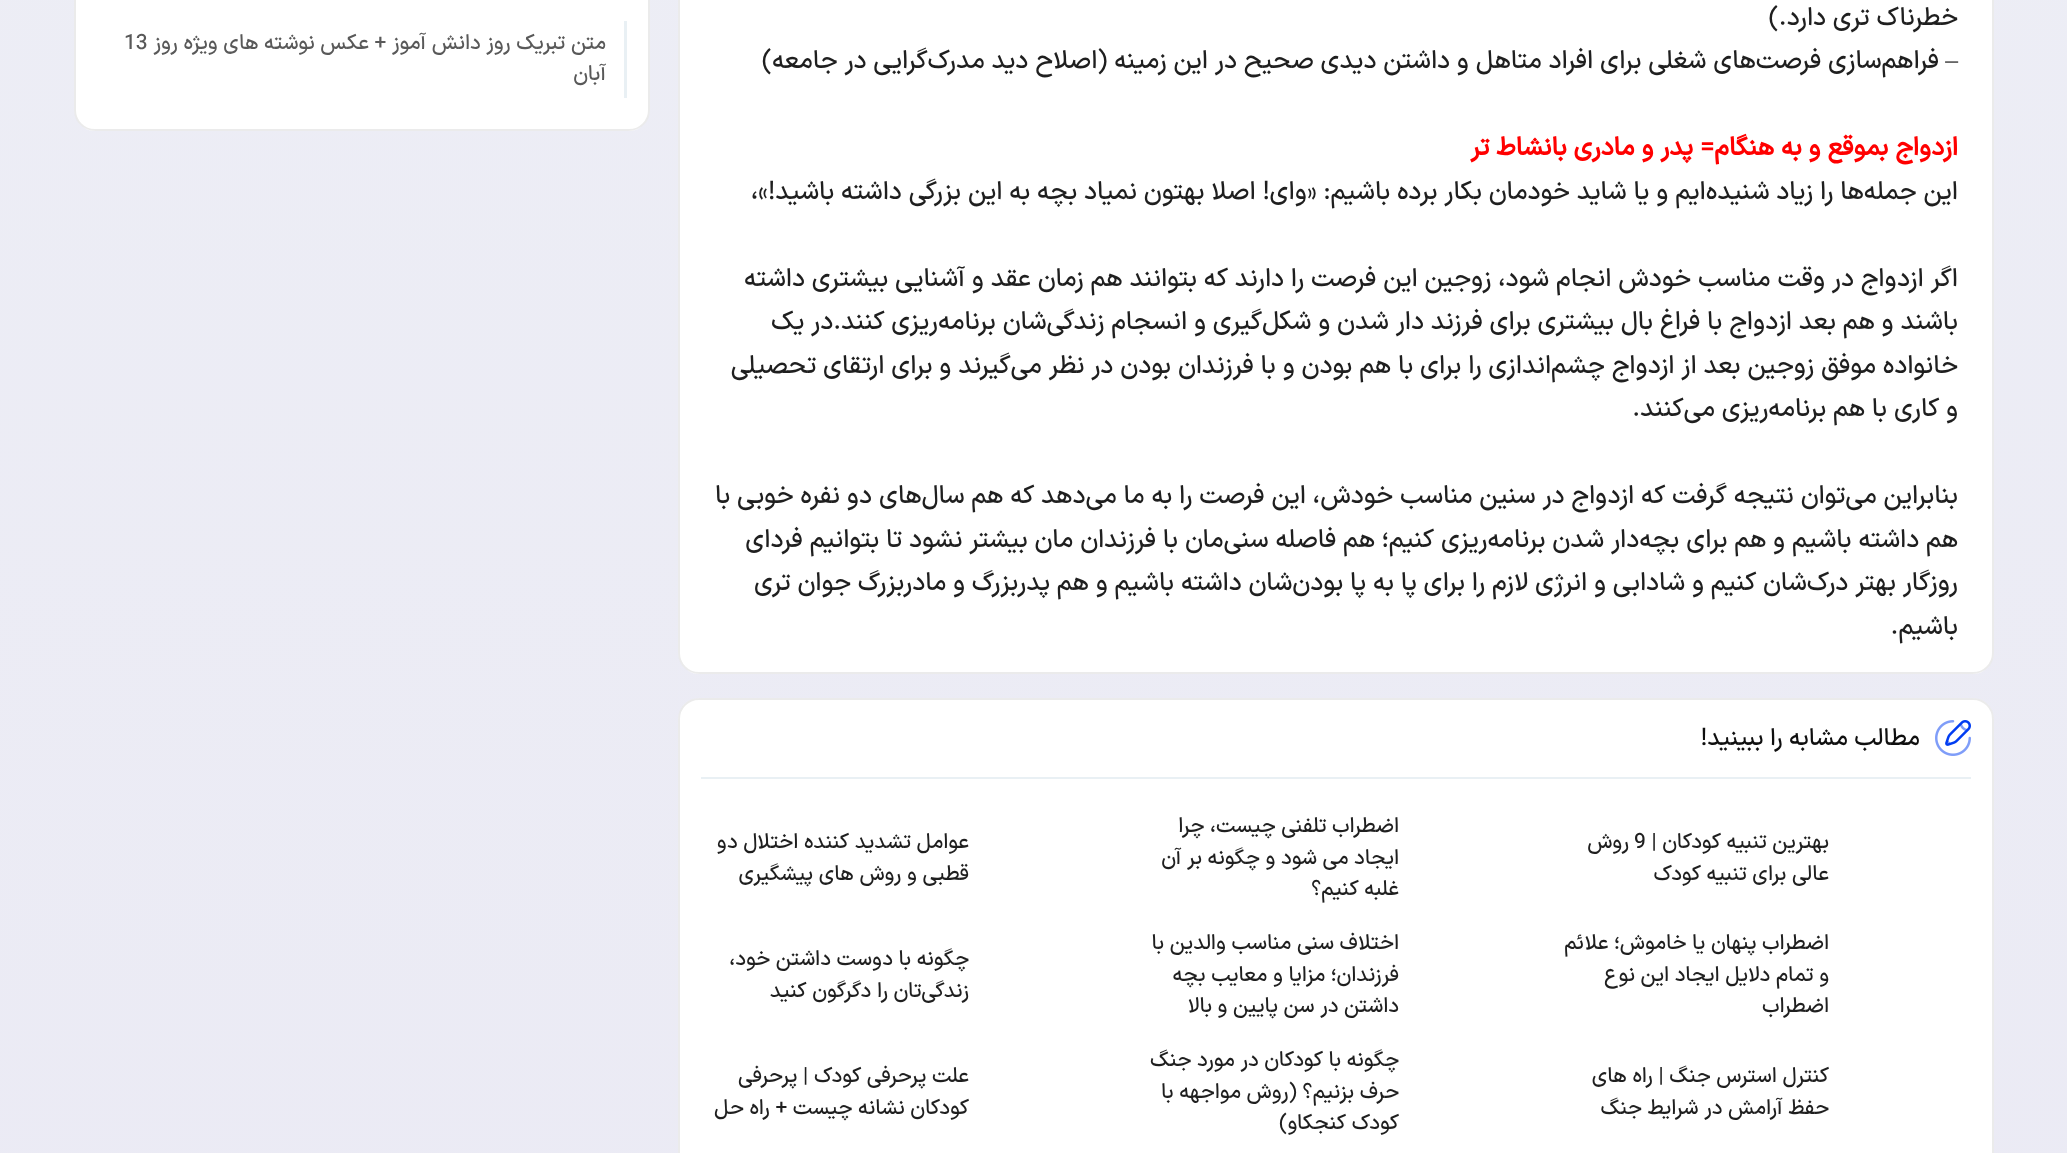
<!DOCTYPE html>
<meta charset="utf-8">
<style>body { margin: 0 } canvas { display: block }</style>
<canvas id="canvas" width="2067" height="1153"></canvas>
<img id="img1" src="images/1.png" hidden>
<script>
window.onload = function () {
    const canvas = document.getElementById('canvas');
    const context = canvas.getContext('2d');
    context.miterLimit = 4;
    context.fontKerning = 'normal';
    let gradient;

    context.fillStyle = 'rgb(255, 255, 255)';
    context.fillRect(0, 0, 2067, 1153);
    gradient = context.createLinearGradient(1034, 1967, 1034, -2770);
    gradient.addColorStop(0, 'rgb(234, 233, 244)');
    gradient.addColorStop(1, 'rgb(240, 243, 247)');
    context.fillStyle = gradient;
    context.fillRect(0, 0, 2067, 1153);
    context.fillStyle = 'rgb(255, 255, 255)';
    context.beginPath();
    context.roundRect(678, -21, 1316, 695, 21);
    context.fill();
    context.beginPath();
    context.roundRect(679, -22, 1314, 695, 20);
    context.strokeStyle = 'rgba(0, 0, 0, 0.08)';
    context.lineWidth = 2;
    context.stroke();
    context.beginPath();
    context.roundRect(678, 698, 1316, 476, 21);
    context.fill();
    context.beginPath();
    context.roundRect(679, 699, 1314, 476, 20);
    context.stroke();
    context.fillStyle = 'rgb(233, 240, 244)';
    context.fillRect(701, 777, 1270, 2);
    context.drawImage(document.getElementById('img1'), 1935, 720, 36, 36);
    context.fillStyle = 'rgb(255, 255, 255)';
    context.beginPath();
    context.roundRect(74, -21, 576, 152, 21);
    context.fill();
    context.beginPath();
    context.roundRect(75, -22, 574, 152, 20);
    context.stroke();
    context.fillStyle = 'rgb(233, 240, 244)';
    context.fillRect(624, 21, 3, 77);
    context.direction = 'rtl';
    context.font = '500 25.5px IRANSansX';
    context.fillStyle = 'rgb(31, 31, 31)';
    context.fillText('خطرناک تری دارد.)', 1958, 25);
    context.font = '25.5px Liberation Serif';
    context.fillText('–', 1958, 68);
    context.font = '500 25.5px IRANSansX';
    context.fillText('فراهم‌سازی فرصت‌های شغلی برای افراد متاهل و داشتن دیدی صحیح در این زمینه (اصلاح دید مدرک‌گرایی در جامعه)', 1939, 68);
    context.font = 'bold 25.5px IRANSansX';
    context.fillStyle = 'rgb(255, 0, 0)';
    context.fillText('ازدواج بموقع و به هنگام= پدر و مادری بانشاط تر', 1958, 155);
    context.font = '500 25.5px IRANSansX';
    context.fillStyle = 'rgb(31, 31, 31)';
    context.fillText('این جمله‌ها را زیاد شنیده‌ایم و یا شاید خودمان بکار برده باشیم: «وای! اصلا بهتون نمیاد بچه به این بزرگی داشته باشید!»،', 1958, 199);
    context.fillText('اگر ازدواج در وقت مناسب خودش انجام شود، زوجین این فرصت را دارند که بتوانند هم زمان عقد و آشنایی بیشتری داشته', 1958, 286);
    context.fillText('باشند و هم بعد ازدواج با فراغ بال بیشتری برای فرزند دار شدن و شکل‌گیری و انسجام زندگی‌شان برنامه‌ریزی کنند.در یک', 1958, 329);
    context.fillText('خانواده موفق زوجین بعد از ازدواج چشم‌اندازی را برای با هم بودن و با فرزندان بودن در نظر می‌گیرند و برای ارتقای تحصیلی', 1958, 373);
    context.fillText('و کاری با هم برنامه‌ریزی می‌کنند.', 1958, 416);
    context.fillText('بنابراین می‌توان نتیجه گرفت که ازدواج در سنین مناسب خودش، این فرصت را به ما می‌دهد که هم سال‌های دو نفره خوبی با', 1958, 503);
    context.fillText('هم داشته باشیم و هم برای بچه‌دار شدن برنامه‌ریزی کنیم؛ هم فاصله سنی‌مان با فرزندان مان بیشتر نشود تا بتوانیم فردای', 1958, 547);
    context.fillText('روزگار بهتر درک‌شان کنیم و شادابی و انرژی لازم را برای پا به پا بودن‌شان داشته باشیم و هم پدربزرگ و مادربزرگ جوان تری', 1958, 590);
    context.fillText('باشیم.', 1958, 634);
    context.font = '500 24px IRANSansX';
    context.fillStyle = 'rgb(15, 15, 15)';
    context.fillText('مطالب مشابه را ببینید!', 1920, 745);
    context.font = '500 21px IRANSansX';
    context.fillStyle = 'rgb(31, 31, 31)';
    context.fillText('بهترین تنبیه کودکان |', 1829, 848);
    context.direction = 'ltr';
    context.fillText('9', 1634, 848);
    context.direction = 'rtl';
    context.fillText('روش', 1629, 848);
    context.fillText('عالی برای تنبیه کودک', 1829, 880);
    context.fillText('اضطراب تلفنی چیست، چرا', 1399, 832);
    context.fillText('ایجاد می شود و چگونه بر آن', 1399, 864);
    context.fillText('غلبه کنیم؟', 1399, 895);
    context.fillText('عوامل تشدید کننده اختلال دو', 969, 848);
    context.fillText('قطبی و روش های پیشگیری', 969, 880);
    context.fillText('اضطراب پنهان یا خاموش؛ علائم', 1829, 949);
    context.fillText('و تمام دلایل ایجاد این نوع', 1829, 981);
    context.fillText('اضطراب', 1829, 1012);
    context.fillText('اختلاف سنی مناسب والدین با', 1399, 949);
    context.fillText('فرزندان؛ مزایا و معایب بچه', 1399, 981);
    context.fillText('داشتن در سن پایین و بالا', 1399, 1012);
    context.fillText('چگونه با دوست داشتن خود،', 969, 965);
    context.fillText('زندگی‌تان را دگرگون کنید', 969, 997);
    context.fillText('کنترل استرس جنگ | راه های', 1829, 1082);
    context.fillText('حفظ آرامش در شرایط جنگ', 1829, 1114);
    context.fillText('چگونه با کودکان در مورد جنگ', 1399, 1066);
    context.fillText('حرف بزنیم؟ (روش مواجهه با', 1399, 1098);
    context.fillText('کودک کنجکاو)', 1399, 1129);
    context.fillText('علت پرحرفی کودک | پرحرفی', 969, 1082);
    context.fillText('کودکان نشانه چیست + راه حل', 969, 1114);
    context.fillStyle = 'rgb(89, 89, 89)';
    context.fillText('متن تبریک روز دانش آموز + عکس نوشته های ویژه روز', 606, 49);
    context.direction = 'ltr';
    context.fillText('13', 124, 49);
    context.direction = 'rtl';
    context.fillText('آبان', 606, 80);
};
</script>
